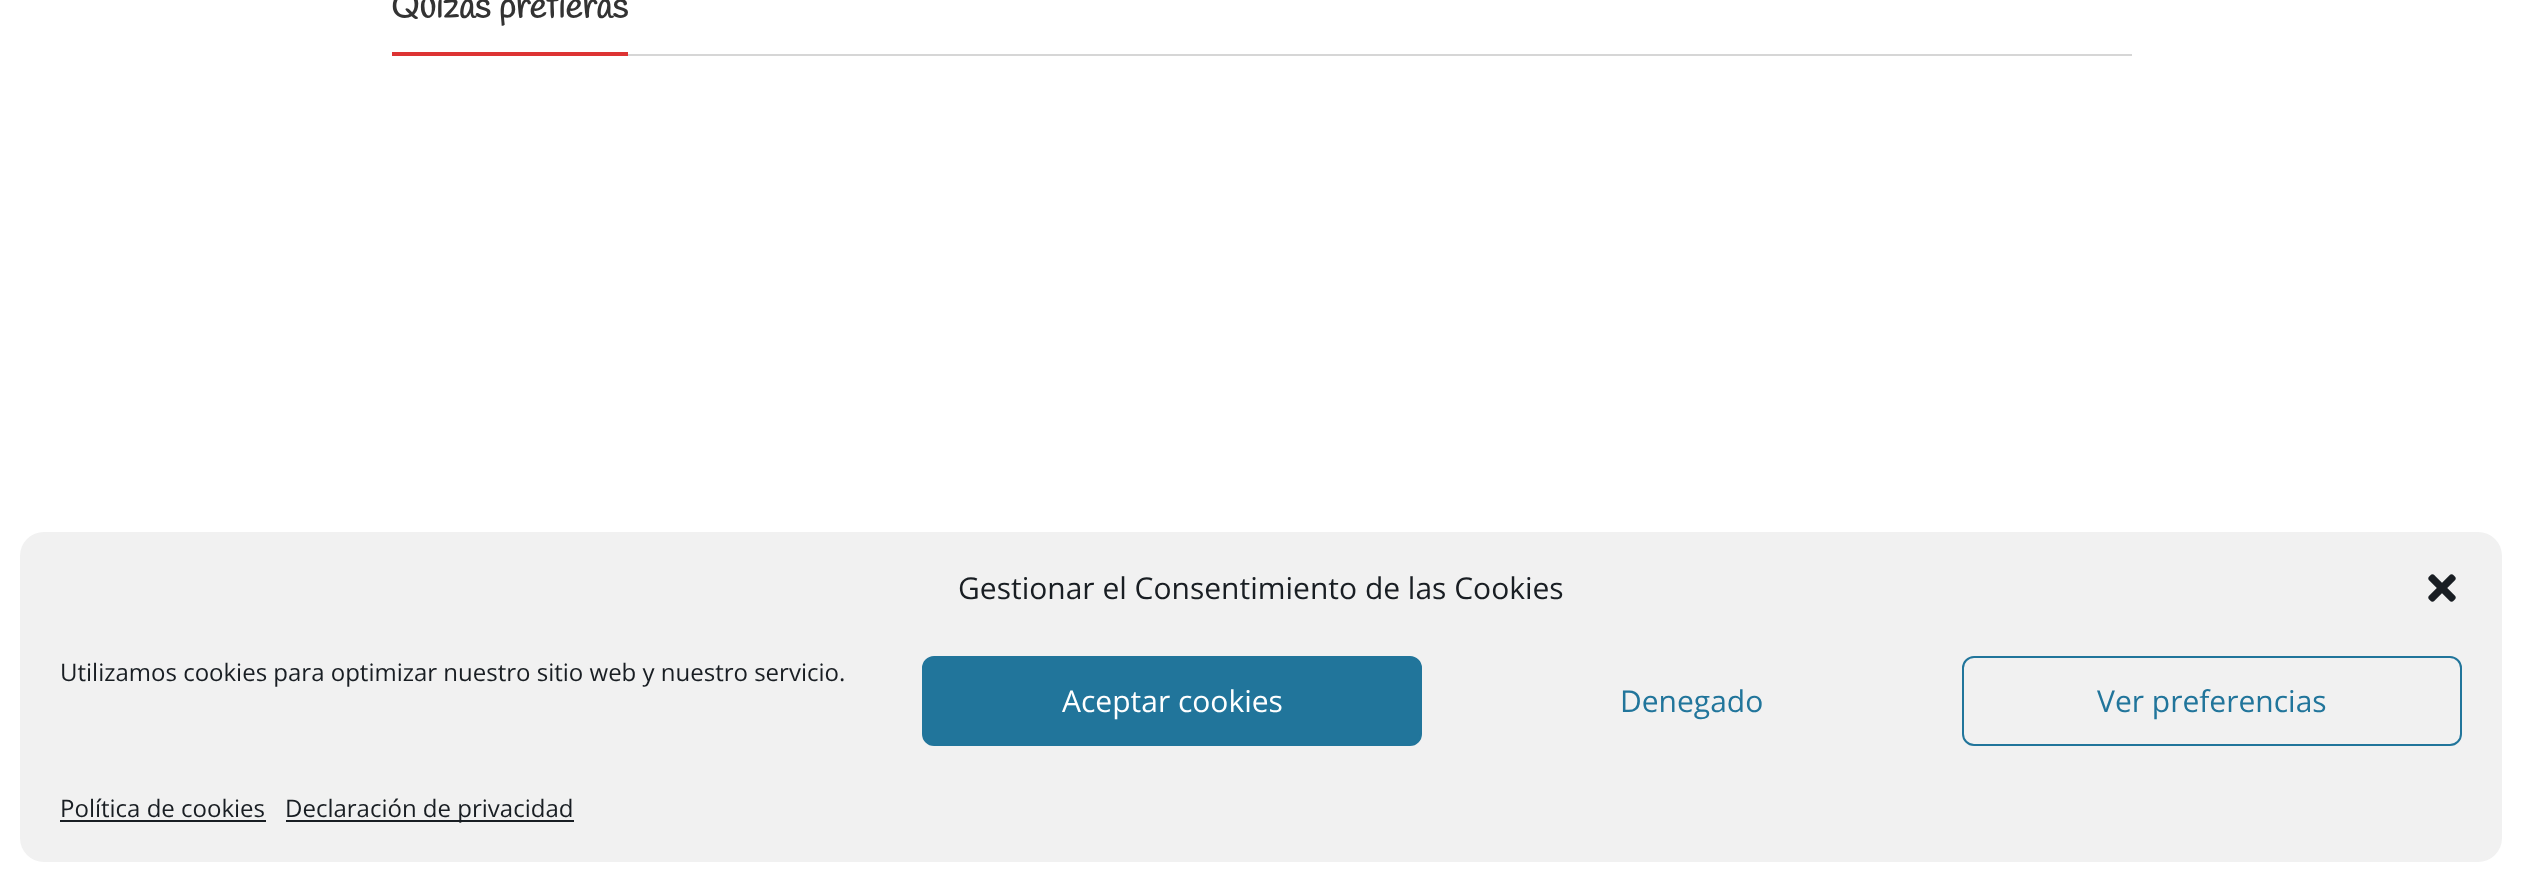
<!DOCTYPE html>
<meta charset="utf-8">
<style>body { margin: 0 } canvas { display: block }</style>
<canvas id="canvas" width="2522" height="882"></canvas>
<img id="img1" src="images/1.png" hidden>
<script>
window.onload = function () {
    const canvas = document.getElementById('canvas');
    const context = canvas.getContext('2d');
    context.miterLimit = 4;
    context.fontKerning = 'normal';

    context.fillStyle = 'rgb(255, 255, 255)';
    context.fillRect(0, 0, 2522, 882);
    context.fillStyle = 'rgb(214, 214, 214)';
    context.fillRect(628, 54, 1504, 2);
    context.fillStyle = 'rgb(221, 51, 51)';
    context.fillRect(392, 52, 236, 4);
    context.fillStyle = 'rgb(241, 241, 241)';
    context.beginPath();
    context.roundRect(20, 532, 2482, 330, 24);
    context.fill();
    context.drawImage(document.getElementById('img1'), 2428, 574, 28, 28);
    context.fillStyle = 'rgb(33, 117, 155)';
    context.beginPath();
    context.roundRect(923, 657, 498, 88, 11);
    context.fill();
    context.strokeStyle = 'rgb(33, 117, 155)';
    context.lineWidth = 2;
    context.stroke();
    context.beginPath();
    context.roundRect(1963, 657, 498, 88, 11);
    context.stroke();
    context.fillStyle = 'rgb(25, 30, 35)';
    context.fillRect(60, 820, 206, 2);
    context.fillRect(286, 820, 288, 2);
    context.font = 'bold 36px Handlee';
    context.fillStyle = 'rgb(51, 51, 51)';
    context.fillText('Quizás prefieras', 391, 18);
    context.font = '30px Open Sans';
    context.fillStyle = 'rgb(25, 30, 35)';
    context.fillText('Gestionar el Consentimiento de las Cookies', 958, 599);
    context.font = '24px Open Sans';
    context.fillText('Utilizamos cookies para optimizar nuestro sitio web y nuestro servicio.', 60, 681);
    context.font = '30px Open Sans';
    context.fillStyle = 'rgb(255, 255, 255)';
    context.fillText('Aceptar cookies', 1062, 712);
    context.fillStyle = 'rgb(33, 117, 155)';
    context.fillText('Denegado', 1620, 712);
    context.fillText('Ver preferencias', 2097, 712);
    context.font = '24px Open Sans';
    context.fillStyle = 'rgb(25, 30, 35)';
    context.fillText('Política de cookies', 60, 817);
    context.fillText('Declaración de privacidad', 285, 817);
};
</script>
